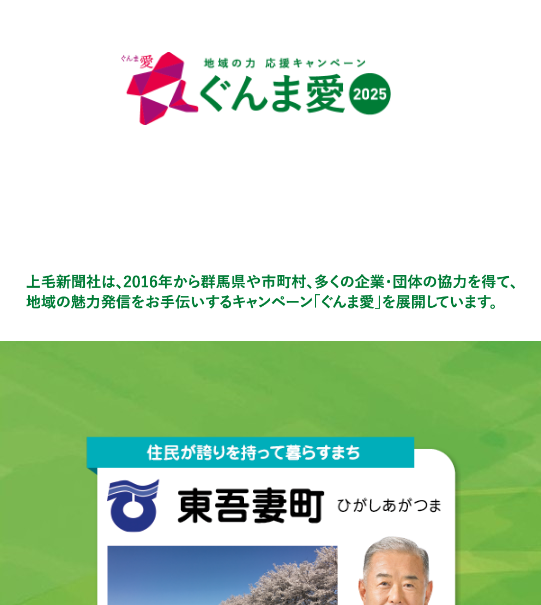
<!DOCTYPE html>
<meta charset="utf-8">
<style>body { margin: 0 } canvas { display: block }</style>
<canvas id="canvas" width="541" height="605"></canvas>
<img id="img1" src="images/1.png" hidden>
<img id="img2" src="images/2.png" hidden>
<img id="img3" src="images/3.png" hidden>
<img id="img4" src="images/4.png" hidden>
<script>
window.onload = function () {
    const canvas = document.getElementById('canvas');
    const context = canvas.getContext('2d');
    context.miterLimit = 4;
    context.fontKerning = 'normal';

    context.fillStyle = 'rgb(255, 255, 255)';
    context.fillRect(0, 0, 541, 605);
    context.drawImage(document.getElementById('img1'), 0, 341, 541, 264);
    context.drawImage(document.getElementById('img2'), 121, 52, 270, 73);
    context.drawImage(document.getElementById('img3'), 26, 274, 489, 35);
    context.drawImage(document.getElementById('img4'), 86, 436, 375, 169);
};
</script>
